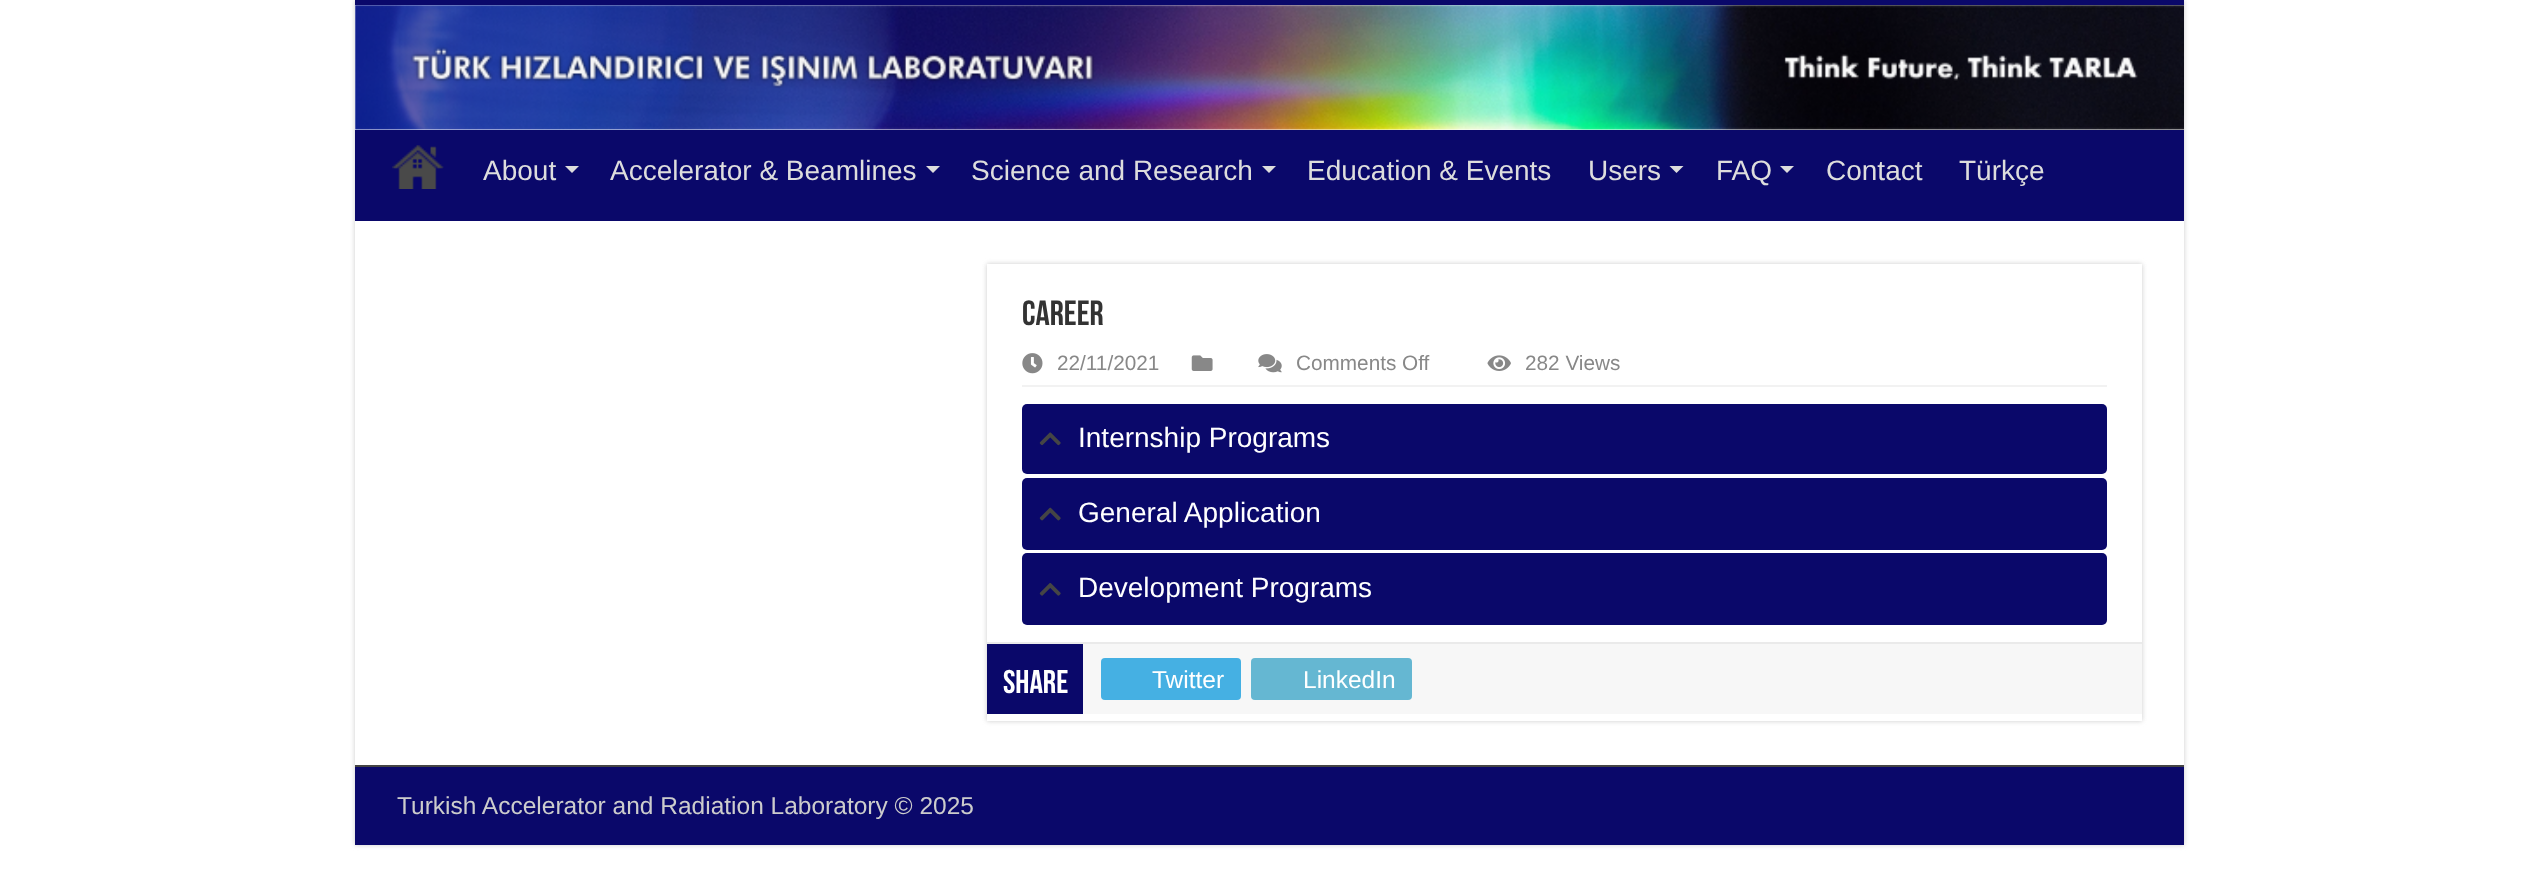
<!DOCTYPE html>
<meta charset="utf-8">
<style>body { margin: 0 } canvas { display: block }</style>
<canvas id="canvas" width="2538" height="885"></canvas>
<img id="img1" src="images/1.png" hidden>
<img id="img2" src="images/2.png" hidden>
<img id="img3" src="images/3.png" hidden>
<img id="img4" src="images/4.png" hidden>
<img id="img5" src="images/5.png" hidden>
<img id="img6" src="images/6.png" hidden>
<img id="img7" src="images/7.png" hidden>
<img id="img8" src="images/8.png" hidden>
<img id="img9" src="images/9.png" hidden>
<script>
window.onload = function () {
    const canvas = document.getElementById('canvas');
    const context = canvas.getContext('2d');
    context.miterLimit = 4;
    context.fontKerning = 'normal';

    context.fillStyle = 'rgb(255, 255, 255)';
    context.fillRect(0, 0, 2538, 885);
    context.fillStyle = 'rgb(202, 202, 202)';
    context.filter = 'blur(2.5px)';
    context.beginPath();
    context.rect(355, 0, 1829, 845);
    context.fill();
    context.filter = 'none';
    context.fillStyle = 'rgb(255, 255, 255)';
    context.fillRect(355, 5, 1829, 760);
    context.fillStyle = 'rgb(10, 8, 106)';
    context.fillRect(355, 0, 1829, 5);
    context.drawImage(document.getElementById('img1'), 355, 5, 1829, 125);
    context.fillRect(355, 130, 1829, 91);
    context.drawImage(document.getElementById('img2'), 392, 145, 52, 44);
    context.fillStyle = 'rgb(221, 221, 221)';
    context.beginPath();
    context.moveTo(565, 166);
    context.lineTo(579, 166);
    context.lineTo(572, 173);
    context.closePath();
    context.fill();
    context.beginPath();
    context.moveTo(926, 166);
    context.lineTo(940, 166);
    context.lineTo(933, 173);
    context.closePath();
    context.fill();
    context.beginPath();
    context.moveTo(1262, 166);
    context.lineTo(1276, 166);
    context.lineTo(1269, 173);
    context.closePath();
    context.fill();
    context.beginPath();
    context.moveTo(1669.5, 166);
    context.lineTo(1683.5, 166);
    context.lineTo(1676.5, 173);
    context.closePath();
    context.fill();
    context.beginPath();
    context.moveTo(1780, 166);
    context.lineTo(1794, 166);
    context.lineTo(1787, 173);
    context.closePath();
    context.fill();
    context.fillStyle = 'rgb(202, 202, 202)';
    context.filter = 'blur(2.5px)';
    context.beginPath();
    context.rect(987, 264, 1155, 457);
    context.fill();
    context.filter = 'none';
    context.fillStyle = 'rgb(255, 255, 255)';
    context.fillRect(987, 264, 1155, 457);
    context.fillStyle = 'rgb(242, 242, 242)';
    context.fillRect(1022, 385, 1085, 2);
    context.drawImage(document.getElementById('img3'), 1022, 353, 21, 21);
    context.drawImage(document.getElementById('img4'), 1191, 355, 22, 16);
    context.drawImage(document.getElementById('img5'), 1258, 354, 24, 19);
    context.drawImage(document.getElementById('img6'), 1487, 355, 24, 16);
    context.fillStyle = 'rgb(10, 8, 106)';
    context.beginPath();
    context.roundRect(1022, 404, 1085, 70, 5);
    context.fill();
    context.drawImage(document.getElementById('img7'), 1039, 432, 22, 14);
    context.beginPath();
    context.roundRect(1022, 478, 1085, 72, 5);
    context.fill();
    context.drawImage(document.getElementById('img8'), 1039, 507, 22, 14);
    context.beginPath();
    context.roundRect(1022, 553, 1085, 72, 5);
    context.fill();
    context.drawImage(document.getElementById('img9'), 1039, 583, 22, 13);
    context.fillStyle = 'rgb(247, 247, 247)';
    context.fillRect(1083, 644, 1059, 70);
    context.fillStyle = 'rgb(234, 234, 234)';
    context.fillRect(987, 642, 1155, 2);
    context.fillStyle = 'rgb(10, 8, 106)';
    context.fillRect(987, 644, 96, 70);
    context.fillStyle = 'rgb(69, 176, 227)';
    context.beginPath();
    context.roundRect(1101, 658, 140, 42, 4);
    context.fill();
    context.fillStyle = 'rgb(101, 183, 210)';
    context.beginPath();
    context.roundRect(1251, 658, 161, 42, 4);
    context.fill();
    context.fillStyle = 'rgb(10, 8, 106)';
    context.fillRect(355, 767, 1829, 78);
    context.fillStyle = 'rgb(68, 68, 68)';
    context.fillRect(355, 765, 1829, 2);
    context.font = '28px Liberation Sans';
    context.fillStyle = 'rgb(221, 221, 221)';
    context.fillText('About', 483, 180);
    context.fillText('Accelerator & Beamlines', 610, 180);
    context.fillText('Science and Research', 971, 180);
    context.fillText('Education & Events', 1307, 180);
    context.fillText('Users', 1588, 180);
    context.fillText('FAQ', 1716, 180);
    context.fillText('Contact', 1826, 180);
    context.fillText('Türkçe', 1959, 180);
    context.font = 'bold 35px Bebas Neue';
    context.fillStyle = 'rgb(51, 51, 51)';
    context.fillText('Career', 1022, 325);
    context.font = '20.75px Liberation Sans';
    context.fillStyle = 'rgb(136, 136, 136)';
    context.fillText('22/11/2021', 1057, 370);
    context.fillText('Comments Off', 1296, 370);
    context.fillText('282 Views', 1525, 370);
    context.font = '28px Liberation Sans';
    context.fillStyle = 'rgb(255, 255, 255)';
    context.fillText('Internship Programs', 1078, 447);
    context.fillText('General Application', 1078, 522);
    context.fillText('Development Programs', 1078, 597);
    context.font = 'bold 33px Bebas Neue';
    context.fillText('Share', 1003, 693);
    context.font = '24.5px Liberation Sans';
    context.fillText('Twitter', 1152, 688);
    context.fillText('LinkedIn', 1303, 688);
    context.fillStyle = 'rgb(204, 204, 204)';
    context.fillText('Turkish Accelerator and Radiation Laboratory © 2025', 397, 814);
};
</script>
